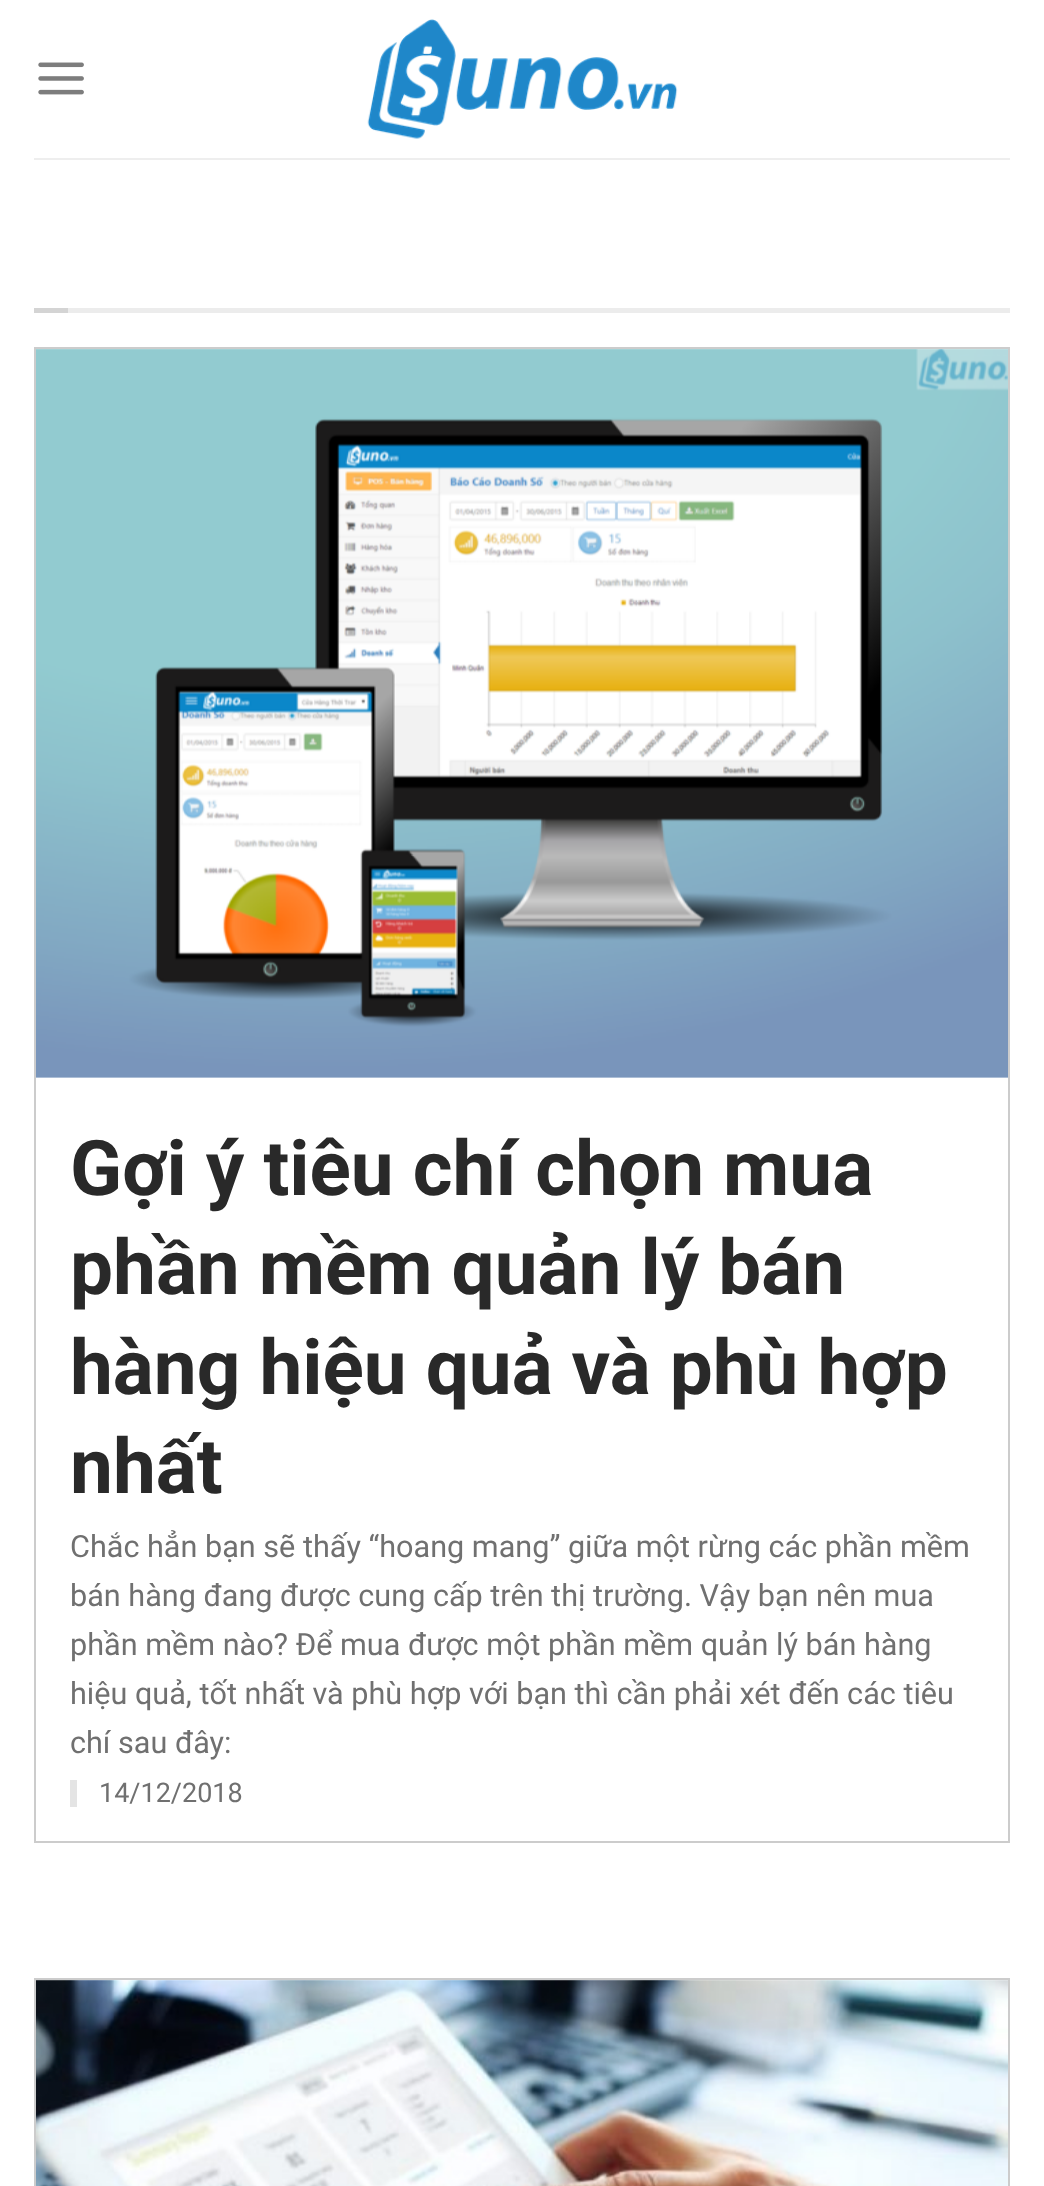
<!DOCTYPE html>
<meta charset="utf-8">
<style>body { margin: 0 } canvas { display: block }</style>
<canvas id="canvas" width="1044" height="2186"></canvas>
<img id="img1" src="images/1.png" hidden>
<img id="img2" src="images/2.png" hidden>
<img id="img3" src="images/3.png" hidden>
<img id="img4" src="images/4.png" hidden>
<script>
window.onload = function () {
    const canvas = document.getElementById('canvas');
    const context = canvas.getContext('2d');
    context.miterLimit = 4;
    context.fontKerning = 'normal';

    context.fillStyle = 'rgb(255, 255, 255)';
    context.fillRect(0, 0, 1044, 2186);
    context.drawImage(document.getElementById('img1'), 38, 62, 46, 33);
    context.drawImage(document.getElementById('img2'), 367, 19, 311, 120);
    context.fillStyle = 'rgb(238, 238, 238)';
    context.fillRect(34, 158, 976, 2);
    context.fillStyle = 'rgb(236, 236, 236)';
    context.fillRect(68, 308, 942, 5);
    context.fillStyle = 'rgb(212, 212, 212)';
    context.fillRect(34, 308, 34, 5);
    context.strokeStyle = 'rgb(204, 204, 204)';
    context.lineWidth = 2;
    context.strokeRect(35, 348, 974, 1494);
    context.drawImage(document.getElementById('img3'), 36, 349, 972, 729);
    context.fillStyle = 'rgb(228, 228, 228)';
    context.fillRect(70, 1780, 7, 27);
    context.strokeRect(35, 1979, 974, 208);
    context.drawImage(document.getElementById('img4'), 36, 1980, 972, 206);
    context.font = 'bold 76.5px Roboto';
    context.fillStyle = 'rgb(41, 41, 41)';
    context.fillText('Gợi ý tiêu chí chọn mua', 70, 1195);
    context.fillText('phần mềm quản lý bán', 70, 1294);
    context.fillText('hàng hiệu quả và phù hợp', 70, 1394);
    context.fillText('nhất', 70, 1493);
    context.font = '30.6px Roboto';
    context.fillStyle = 'rgb(112, 112, 112)';
    context.fillText('Chắc hẳn bạn sẽ thấy “hoang mang” giữa một rừng các phần mềm', 70, 1557);
    context.fillText('bán hàng đang được cung cấp trên thị trường. Vậy bạn nên mua', 70, 1606);
    context.fillText('phần mềm nào? Để mua được một phần mềm quản lý bán hàng', 70, 1655);
    context.fillText('hiệu quả, tốt nhất và phù hợp với bạn thì cần phải xét đến các tiêu', 70, 1704);
    context.fillText('chí sau đây:', 70, 1753);
    context.font = '27px Roboto';
    context.fillText('14/12/2018', 99, 1802);
};
</script>
